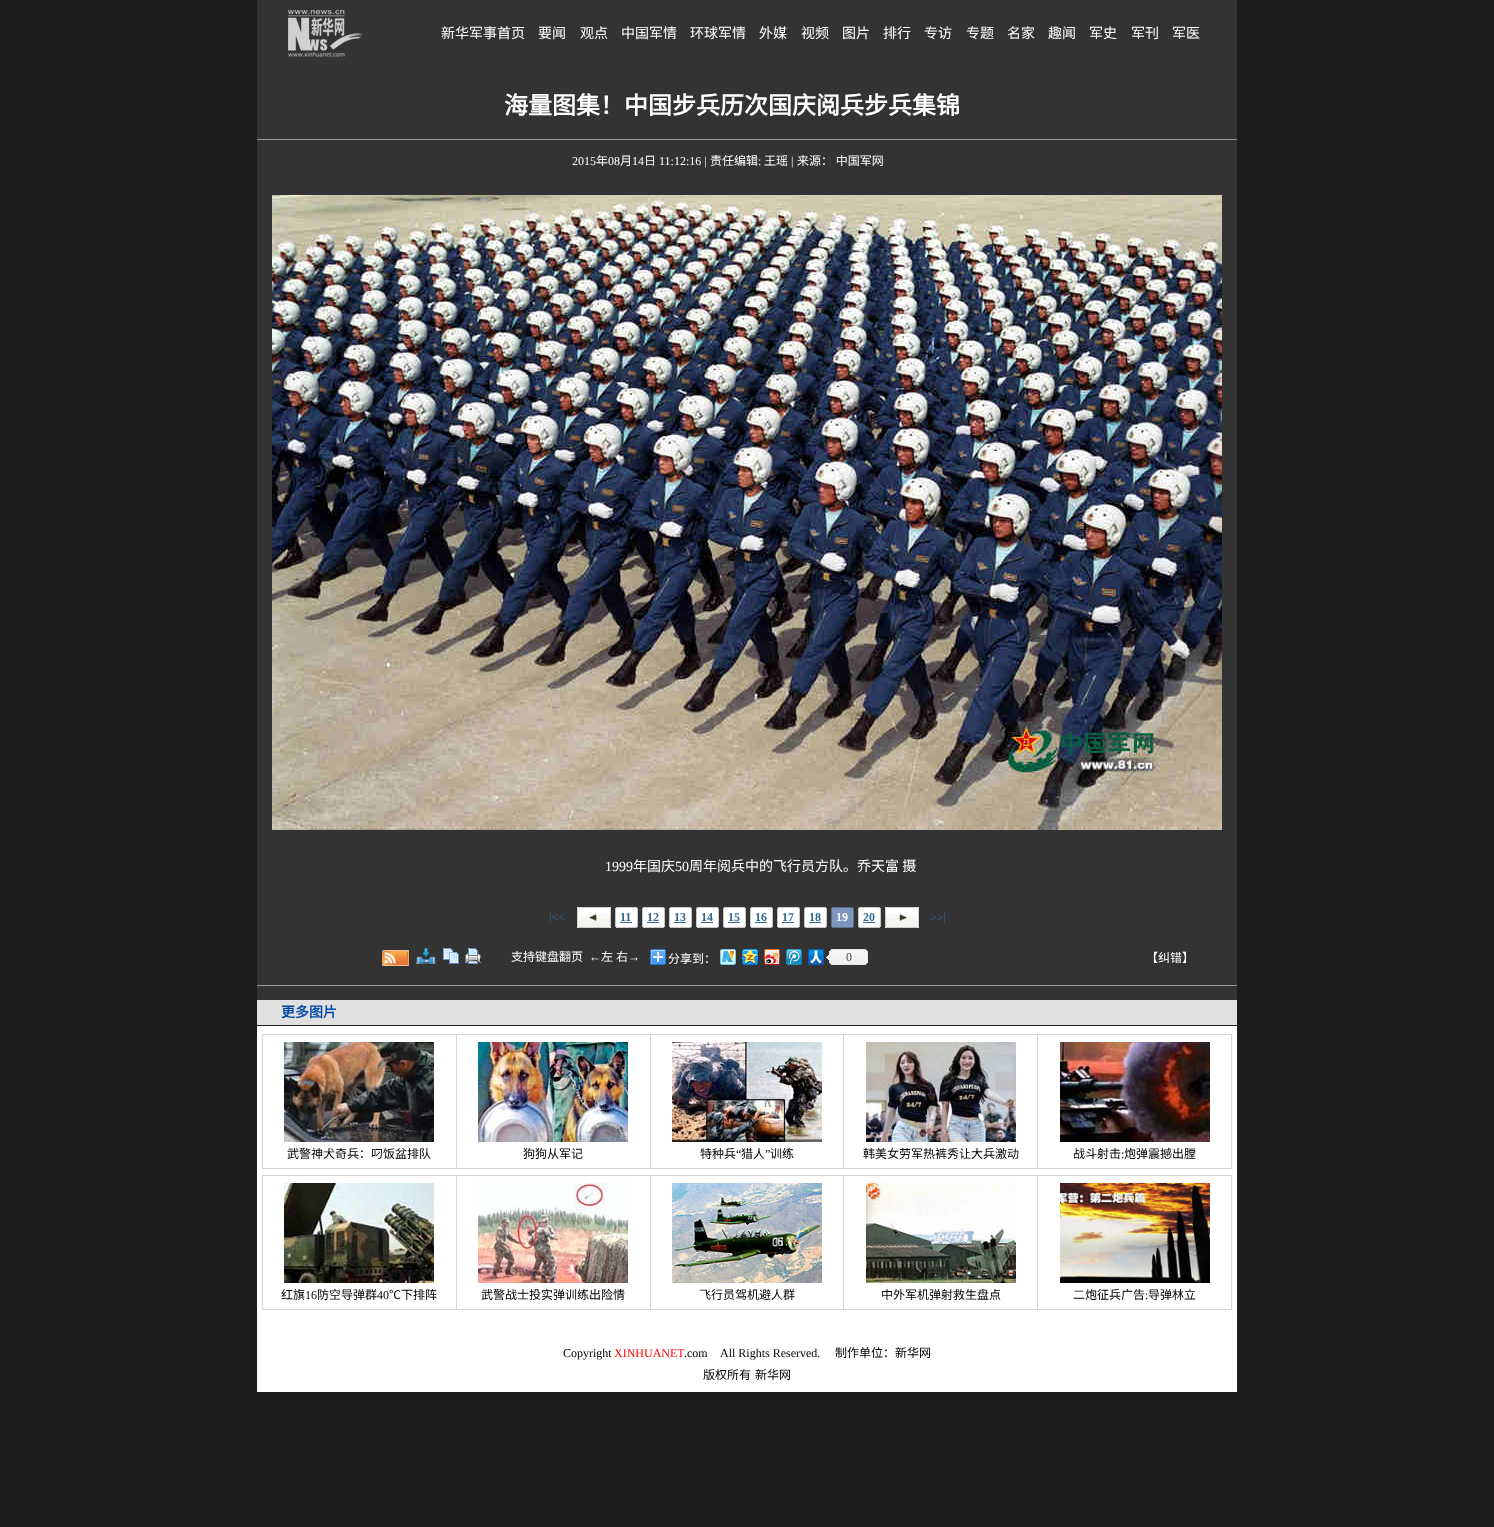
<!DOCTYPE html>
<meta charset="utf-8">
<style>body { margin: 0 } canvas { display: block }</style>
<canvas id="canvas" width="1494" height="1527"></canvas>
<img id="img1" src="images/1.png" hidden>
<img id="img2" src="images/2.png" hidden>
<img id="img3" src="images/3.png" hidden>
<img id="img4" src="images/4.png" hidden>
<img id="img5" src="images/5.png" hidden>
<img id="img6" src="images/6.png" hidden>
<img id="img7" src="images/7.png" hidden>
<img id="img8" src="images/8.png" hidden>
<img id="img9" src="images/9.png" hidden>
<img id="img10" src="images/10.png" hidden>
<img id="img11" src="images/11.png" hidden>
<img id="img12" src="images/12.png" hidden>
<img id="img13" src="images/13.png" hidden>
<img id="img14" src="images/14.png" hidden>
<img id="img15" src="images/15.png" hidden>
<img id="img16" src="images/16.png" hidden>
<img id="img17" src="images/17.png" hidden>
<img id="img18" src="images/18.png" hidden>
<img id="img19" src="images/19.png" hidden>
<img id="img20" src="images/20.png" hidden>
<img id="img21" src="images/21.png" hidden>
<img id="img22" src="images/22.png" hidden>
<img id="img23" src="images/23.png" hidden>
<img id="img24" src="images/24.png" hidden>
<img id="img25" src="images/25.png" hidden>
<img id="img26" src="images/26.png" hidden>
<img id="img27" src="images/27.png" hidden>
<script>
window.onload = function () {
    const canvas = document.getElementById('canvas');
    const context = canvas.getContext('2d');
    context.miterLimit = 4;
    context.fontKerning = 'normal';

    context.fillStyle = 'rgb(28, 28, 28)';
    context.fillRect(0, 0, 1494, 1527);
    context.fillStyle = 'rgb(51, 51, 51)';
    context.fillRect(257, 0, 980, 1000);
    context.drawImage(document.getElementById('img1'), 288, 10, 75, 47);
    context.fillStyle = 'rgb(153, 153, 153)';
    context.fillRect(257, 139, 980, 1);
    context.drawImage(document.getElementById('img2'), 272, 195, 950, 635);
    context.drawImage(document.getElementById('img3'), 577, 907, 34, 21);
    context.drawImage(document.getElementById('img4'), 615, 907, 23, 21);
    context.fillStyle = 'rgb(51, 102, 150)';
    context.fillRect(620, 922, 12, 1);
    context.drawImage(document.getElementById('img4'), 642, 907, 23, 21);
    context.fillRect(647, 922, 12, 1);
    context.drawImage(document.getElementById('img4'), 669, 907, 23, 21);
    context.fillRect(674, 922, 12, 1);
    context.drawImage(document.getElementById('img4'), 696, 907, 23, 21);
    context.fillRect(701, 922, 12, 1);
    context.drawImage(document.getElementById('img4'), 723, 907, 23, 21);
    context.fillRect(728, 922, 12, 1);
    context.drawImage(document.getElementById('img4'), 750, 907, 23, 21);
    context.fillRect(755, 922, 12, 1);
    context.drawImage(document.getElementById('img4'), 777, 907, 23, 21);
    context.fillRect(782, 922, 12, 1);
    context.drawImage(document.getElementById('img4'), 804, 907, 23, 21);
    context.fillRect(809, 922, 12, 1);
    context.drawImage(document.getElementById('img5'), 831, 907, 23, 21);
    context.drawImage(document.getElementById('img4'), 858, 907, 23, 21);
    context.fillRect(863, 922, 12, 1);
    context.drawImage(document.getElementById('img6'), 885, 907, 34, 21);
    context.drawImage(document.getElementById('img7'), 382, 950, 27, 16);
    context.drawImage(document.getElementById('img8'), 416, 948, 20, 16);
    context.drawImage(document.getElementById('img9'), 443, 948, 16, 16);
    context.drawImage(document.getElementById('img10'), 465, 948, 16, 16);
    context.drawImage(document.getElementById('img11'), 650, 949, 16, 16);
    context.drawImage(document.getElementById('img12'), 720, 949, 16, 16);
    context.drawImage(document.getElementById('img13'), 742, 949, 16, 16);
    context.drawImage(document.getElementById('img14'), 764, 949, 16, 16);
    context.drawImage(document.getElementById('img15'), 786, 949, 16, 16);
    context.drawImage(document.getElementById('img16'), 808, 949, 16, 16);
    context.drawImage(document.getElementById('img17'), 826, 949, 42, 16);
    context.fillStyle = 'rgb(153, 153, 153)';
    context.fillRect(257, 985, 980, 1);
    context.fillStyle = 'rgb(255, 255, 255)';
    context.fillRect(257, 1026, 980, 366);
    context.fillStyle = 'rgb(224, 224, 224)';
    context.fillRect(257, 1000, 980, 25);
    context.fillStyle = 'rgb(31, 31, 31)';
    context.fillRect(257, 1025, 980, 1);
    context.fillStyle = 'rgb(213, 213, 213)';
    context.fillRect(262, 1034, 970, 135);
    context.fillStyle = 'rgb(255, 255, 255)';
    context.fillRect(263, 1035, 193, 133);
    context.drawImage(document.getElementById('img18'), 284, 1042, 150, 100);
    context.fillRect(457, 1035, 193, 133);
    context.drawImage(document.getElementById('img19'), 478, 1042, 150, 100);
    context.fillRect(651, 1035, 192, 133);
    context.drawImage(document.getElementById('img20'), 672, 1042, 150, 100);
    context.fillRect(844, 1035, 193, 133);
    context.drawImage(document.getElementById('img21'), 866, 1042, 150, 100);
    context.fillRect(1038, 1035, 193, 133);
    context.drawImage(document.getElementById('img22'), 1060, 1042, 150, 100);
    context.fillStyle = 'rgb(213, 213, 213)';
    context.fillRect(262, 1175, 970, 135);
    context.fillStyle = 'rgb(255, 255, 255)';
    context.fillRect(263, 1176, 193, 133);
    context.drawImage(document.getElementById('img23'), 284, 1183, 150, 100);
    context.fillRect(457, 1176, 193, 133);
    context.drawImage(document.getElementById('img24'), 478, 1183, 150, 100);
    context.fillRect(651, 1176, 192, 133);
    context.drawImage(document.getElementById('img25'), 672, 1183, 150, 100);
    context.fillRect(844, 1176, 193, 133);
    context.drawImage(document.getElementById('img26'), 866, 1183, 150, 100);
    context.fillRect(1038, 1176, 193, 133);
    context.drawImage(document.getElementById('img27'), 1060, 1183, 150, 100);
    context.font = '14px Noto Sans CJK SC';
    context.fillText('新华军事首页', 441, 38);
    context.fillText('要闻', 538, 38);
    context.fillText('观点', 580, 38);
    context.fillText('中国军情', 621, 38);
    context.fillText('环球军情', 690, 38);
    context.fillText('外媒', 759, 38);
    context.fillText('视频', 801, 38);
    context.fillText('图片', 842, 38);
    context.fillText('排行', 883, 38);
    context.fillText('专访', 924, 38);
    context.fillText('专题', 966, 38);
    context.fillText('名家', 1007, 38);
    context.fillText('趣闻', 1048, 38);
    context.fillText('军史', 1089, 38);
    context.fillText('军刊', 1131, 38);
    context.fillText('军医', 1172, 38);
    context.font = 'bold 24px Noto Sans CJK SC';
    context.fillText('海量图集！中国步兵历次国庆阅兵步兵集锦', 504, 114);
    context.font = '12px Liberation Serif';
    context.fillText('2015', 572, 165);
    context.font = '12px Noto Sans CJK SC';
    context.fillText('年', 596, 165);
    context.font = '12px Liberation Serif';
    context.fillText('08', 608, 165);
    context.font = '12px Noto Sans CJK SC';
    context.fillText('月', 620, 165);
    context.font = '12px Liberation Serif';
    context.fillText('14', 632, 165);
    context.font = '12px Noto Sans CJK SC';
    context.fillText('日', 644, 165);
    context.font = '12px Liberation Serif';
    context.fillText('11:12:16 |', 659, 165);
    context.font = '12px Noto Sans CJK SC';
    context.fillText('责任编辑', 710, 165);
    context.font = '12px Liberation Serif';
    context.fillText(':', 758, 165);
    context.font = '12px Noto Sans CJK SC';
    context.fillText('王瑶', 764, 165);
    context.font = '12px Liberation Serif';
    context.fillText('|', 791, 165);
    context.font = '12px Noto Sans CJK SC';
    context.fillText('来源： 中国军网', 797, 165);
    context.font = '14px Liberation Serif';
    context.fillText('1999', 605, 871);
    context.font = '14px Noto Sans CJK SC';
    context.fillText('年国庆', 633, 871);
    context.font = '14px Liberation Serif';
    context.fillText('50', 675, 871);
    context.font = '14px Noto Sans CJK SC';
    context.fillText('周年阅兵中的飞行员方队。乔天富 摄', 689, 871);
    context.font = '12px Liberation Serif';
    context.fillStyle = 'rgb(51, 102, 150)';
    context.fillText('|<<', 549, 921);
    context.font = 'bold 12px Liberation Serif';
    context.fillText('11', 620, 921);
    context.fillText('12', 647, 921);
    context.fillText('13', 674, 921);
    context.fillText('14', 701, 921);
    context.fillText('15', 728, 921);
    context.fillText('16', 755, 921);
    context.fillText('17', 782, 921);
    context.fillText('18', 809, 921);
    context.fillStyle = 'rgb(255, 255, 255)';
    context.fillText('19', 836, 921);
    context.fillStyle = 'rgb(51, 102, 150)';
    context.fillText('20', 863, 921);
    context.font = '12px Liberation Serif';
    context.fillText('>>|', 930, 921);
    context.font = '12px Noto Sans CJK SC';
    context.fillStyle = 'rgb(255, 255, 255)';
    context.fillText('支持键盘翻页', 511, 961);
    context.font = '12px Liberation Serif';
    context.fillText('←', 589, 961);
    context.font = '12px Noto Sans CJK SC';
    context.fillText('左', 601, 961);
    context.fillText('右', 616, 961);
    context.font = '12px Liberation Serif';
    context.fillText('→', 628, 961);
    context.font = '12px Noto Sans CJK SC';
    context.fillText('分享到：', 668, 963);
    context.font = '12px Liberation Serif';
    context.fillStyle = 'rgb(69, 69, 69)';
    context.fillText('0', 846, 961);
    context.font = '12px Noto Sans CJK SC';
    context.fillStyle = 'rgb(255, 255, 255)';
    context.fillText('【纠错】', 1146, 962);
    context.font = 'bold 14px Noto Sans CJK SC';
    context.fillStyle = 'rgb(0, 72, 167)';
    context.fillText('更多图片', 281, 1017);
    context.font = '12px Noto Sans CJK SC';
    context.fillStyle = 'rgb(0, 0, 0)';
    context.fillText('武警神犬奇兵：叼饭盆排队', 287, 1158);
    context.fillText('狗狗从军记', 523, 1158);
    context.fillText('特种兵', 700, 1158);
    context.font = '12px Liberation Serif';
    context.fillText('“', 736, 1158);
    context.font = '12px Noto Sans CJK SC';
    context.fillText('猎人', 741, 1158);
    context.font = '12px Liberation Serif';
    context.fillText('”', 765, 1158);
    context.font = '12px Noto Sans CJK SC';
    context.fillText('训练', 770, 1158);
    context.fillText('韩美女劳军热裤秀让大兵激动', 863, 1158);
    context.fillText('战斗射击', 1073, 1158);
    context.font = '12px Liberation Serif';
    context.fillText(':', 1121, 1158);
    context.font = '12px Noto Sans CJK SC';
    context.fillText('炮弹震撼出膛', 1124, 1158);
    context.fillText('红旗', 281, 1299);
    context.font = '12px Liberation Serif';
    context.fillText('16', 305, 1299);
    context.font = '12px Noto Sans CJK SC';
    context.fillText('防空导弹群', 317, 1299);
    context.font = '12px Liberation Serif';
    context.fillText('40', 377, 1299);
    context.font = '12px Noto Sans CJK SC';
    context.fillText('℃下排阵', 389, 1299);
    context.fillText('武警战士投实弹训练出险情', 481, 1299);
    context.fillText('飞行员驾机避人群', 699, 1299);
    context.fillText('中外军机弹射救生盘点', 881, 1299);
    context.fillText('二炮征兵广告', 1073, 1299);
    context.font = '12px Liberation Serif';
    context.fillText(':', 1145, 1299);
    context.font = '12px Noto Sans CJK SC';
    context.fillText('导弹林立', 1148, 1299);
    context.font = '12px Liberation Serif';
    context.fillText('Copyright', 563, 1357);
    context.fillStyle = 'rgb(255, 0, 0)';
    context.fillText('XINHUANET', 614, 1357);
    context.fillStyle = 'rgb(0, 0, 0)';
    context.fillText('.com', 684, 1357);
    context.fillText('All Rights Reserved.', 720, 1357);
    context.font = '12px Noto Sans CJK SC';
    context.fillText('制作单位：新华网', 835, 1357);
    context.fillText('版权所有', 703, 1379);
    context.fillText('新华网', 755, 1379);
};
</script>
